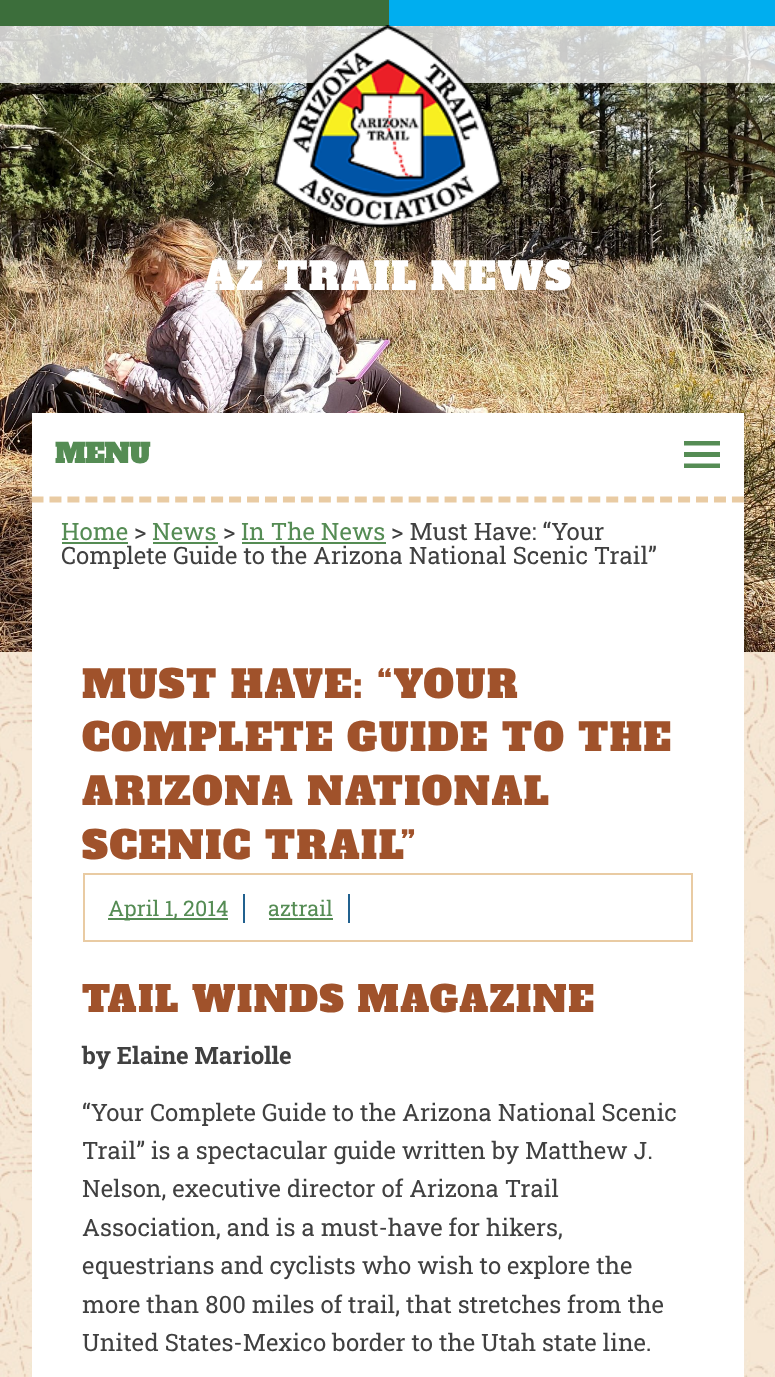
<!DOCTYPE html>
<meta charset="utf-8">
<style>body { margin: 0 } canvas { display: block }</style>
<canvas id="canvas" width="775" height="1377"></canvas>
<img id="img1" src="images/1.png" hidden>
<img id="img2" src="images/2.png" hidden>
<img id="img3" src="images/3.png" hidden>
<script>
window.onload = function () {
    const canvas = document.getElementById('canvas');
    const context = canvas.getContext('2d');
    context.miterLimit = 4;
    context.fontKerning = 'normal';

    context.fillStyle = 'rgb(255, 255, 255)';
    context.fillRect(0, 0, 775, 1377);
    context.drawImage(document.getElementById('img1'), 0, 652, 775, 725);
    context.drawImage(document.getElementById('img2'), 0, 26, 775, 626);
    context.fillStyle = 'rgba(250, 250, 250, 0.8)';
    context.fillRect(0, 26, 775, 57);
    context.fillStyle = 'rgb(60, 110, 59)';
    context.fillRect(0, 0, 389, 26);
    context.fillStyle = 'rgb(0, 174, 239)';
    context.fillRect(389, 0, 386, 26);
    context.drawImage(document.getElementById('img3'), 273, 25, 230, 203);
    context.fillStyle = 'rgb(255, 255, 255)';
    context.fillRect(32, 413, 712, 964);
    context.beginPath();
    context.moveTo(31.5, 499.5);
    context.lineTo(744, 499.5);
    context.strokeStyle = 'rgb(233, 203, 163)';
    context.lineWidth = 6;
    context.setLineDash([12, 5.96]);
    context.stroke();
    context.fillStyle = 'rgb(85, 140, 84)';
    context.beginPath();
    context.moveTo(684, 468);
    context.lineTo(684, 463.5);
    context.lineTo(720, 463.5);
    context.lineTo(720, 468);
    context.closePath();
    context.moveTo(684, 441);
    context.lineTo(720, 441);
    context.lineTo(720, 445.5);
    context.lineTo(684, 445.5);
    context.closePath();
    context.moveTo(684, 457);
    context.lineTo(684, 452);
    context.lineTo(720, 452);
    context.lineTo(720, 457);
    context.closePath();
    context.fill();
    context.fillRect(62, 542, 66, 2);
    context.fillRect(153, 542, 65, 2);
    context.fillRect(242, 542, 144, 2);
    context.lineWidth = 2;
    context.setLineDash([]);
    context.strokeRect(84, 874, 608, 67);
    context.fillStyle = 'rgb(33, 97, 143)';
    context.fillRect(243, 894, 2, 29);
    context.fillStyle = 'rgb(85, 140, 84)';
    context.fillRect(108, 918, 120, 2);
    context.fillStyle = 'rgb(33, 97, 143)';
    context.fillRect(348, 894, 2, 29);
    context.fillStyle = 'rgb(85, 140, 84)';
    context.fillRect(269, 918, 64, 2);
    context.letterSpacing = '1.5px';
    context.font = '38.4px Alfa Slab One';
    context.fillStyle = 'rgb(255, 255, 255)';
    context.fillText('AZ TRAIL NEWS', 204, 290);
    context.letterSpacing = '0px';
    context.font = 'bold 26.5px Alfa Slab One';
    context.fillStyle = 'rgb(85, 140, 84)';
    context.fillText('MENU', 55, 463);
    context.font = '24px Roboto Slab';
    context.fillText('Home', 61, 540);
    context.fillStyle = 'rgb(64, 64, 64)';
    context.fillText('>', 134, 540);
    context.fillStyle = 'rgb(85, 140, 84)';
    context.fillText('News', 152, 540);
    context.fillStyle = 'rgb(64, 64, 64)';
    context.fillText('>', 223, 540);
    context.fillStyle = 'rgb(85, 140, 84)';
    context.fillText('In The News', 241, 540);
    context.fillStyle = 'rgb(64, 64, 64)';
    context.fillText('> Must Have: “Your', 391, 540);
    context.fillText('Complete Guide to the Arizona National Scenic Trail”', 61, 564);
    context.letterSpacing = '1.5px';
    context.font = '38.4px Alfa Slab One';
    context.fillStyle = 'rgb(160, 82, 43)';
    context.fillText('MUST HAVE: “YOUR', 82, 698);
    context.fillText('COMPLETE GUIDE TO THE', 82, 751);
    context.fillText('ARIZONA NATIONAL', 82, 805);
    context.fillText('SCENIC TRAIL”', 82, 859);
    context.letterSpacing = '0px';
    context.font = '21.5px Roboto Slab';
    context.fillStyle = 'rgb(85, 140, 84)';
    context.fillText('April 1, 2014', 108, 916);
    context.fillText('aztrail', 268, 916);
    context.letterSpacing = '1.5px';
    context.font = '36px Alfa Slab One';
    context.fillStyle = 'rgb(160, 82, 43)';
    context.fillText('TAIL WINDS MAGAZINE', 82, 1012);
    context.letterSpacing = '0px';
    context.font = 'bold 24px Roboto Slab';
    context.fillStyle = 'rgb(64, 64, 64)';
    context.fillText('by Elaine Mariolle', 82, 1064);
    context.font = '24px Roboto Slab';
    context.fillText('“Your Complete Guide to the Arizona National Scenic', 82, 1121);
    context.fillText('Trail” is a spectacular guide written by Matthew J.', 82, 1159);
    context.fillText('Nelson, executive director of Arizona Trail', 82, 1197);
    context.fillText('Association, and is a must-have for hikers,', 82, 1236);
    context.fillText('equestrians and cyclists who wish to explore the', 82, 1274);
    context.fillText('more than 800 miles of trail, that stretches from the', 82, 1313);
    context.fillText('United States-Mexico border to the Utah state line.', 82, 1351);
};
</script>
